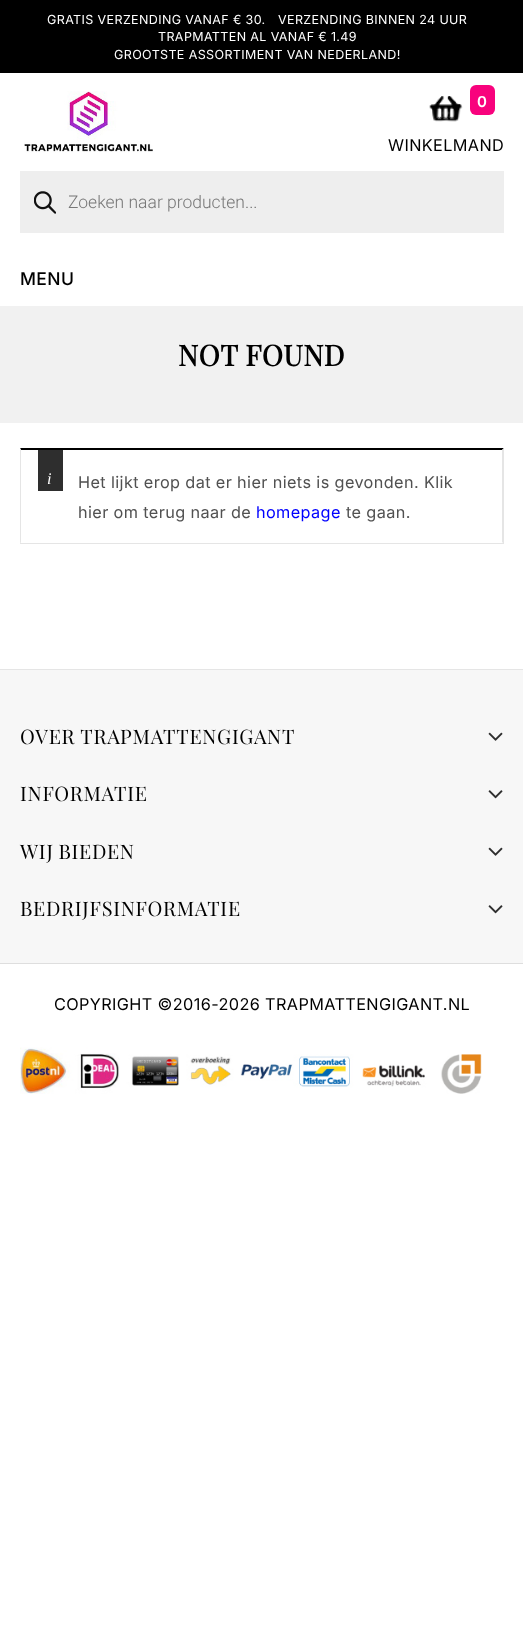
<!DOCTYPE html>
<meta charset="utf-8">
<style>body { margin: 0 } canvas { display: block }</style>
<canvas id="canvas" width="523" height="1646"></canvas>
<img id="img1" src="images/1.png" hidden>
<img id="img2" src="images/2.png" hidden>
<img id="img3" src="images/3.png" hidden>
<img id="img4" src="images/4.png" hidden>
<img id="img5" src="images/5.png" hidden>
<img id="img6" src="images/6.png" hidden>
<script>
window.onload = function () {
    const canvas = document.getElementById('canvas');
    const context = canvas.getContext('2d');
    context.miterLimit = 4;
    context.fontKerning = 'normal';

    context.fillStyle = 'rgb(255, 255, 255)';
    context.fillRect(0, 0, 523, 1646);
    context.fillStyle = 'rgb(0, 0, 0)';
    context.fillRect(0, 0, 523, 73);
    context.drawImage(document.getElementById('img1'), 24, 91, 129, 62);
    context.drawImage(document.getElementById('img2'), 429, 96, 34, 26);
    context.fillStyle = 'rgb(248, 2, 125)';
    context.beginPath();
    context.roundRect(470, 85, 25, 30, 6);
    context.fill();
    context.fillStyle = 'rgb(238, 238, 238)';
    context.fillRect(20, 171, 484, 62);
    context.drawImage(document.getElementById('img3'), 34, 191, 22, 23);
    context.fillStyle = 'rgb(241, 241, 241)';
    context.fillRect(0, 306, 523, 117);
    context.fillStyle = 'rgb(0, 0, 0)';
    context.beginPath();
    context.moveTo(20, 448);
    context.lineTo(504, 448);
    context.lineTo(502, 450);
    context.lineTo(21, 450);
    context.closePath();
    context.fill();
    context.fillStyle = 'rgb(229, 229, 229)';
    context.beginPath();
    context.moveTo(504, 448);
    context.lineTo(504, 544);
    context.lineTo(502, 542);
    context.lineTo(502, 450);
    context.closePath();
    context.fill();
    context.fillRect(20, 543, 484, 1);
    context.beginPath();
    context.moveTo(20, 544);
    context.lineTo(20, 448);
    context.lineTo(21, 450);
    context.lineTo(21, 542);
    context.closePath();
    context.fill();
    context.fillStyle = 'rgb(46, 46, 46)';
    context.fillRect(38, 450, 25, 41);
    context.fillStyle = 'rgb(247, 247, 247)';
    context.fillRect(0, 670, 523, 293);
    context.fillStyle = 'rgb(229, 229, 229)';
    context.fillRect(0, 669, 523, 1);
    context.drawImage(document.getElementById('img4'), 488, 732, 15, 9);
    context.drawImage(document.getElementById('img5'), 488, 790, 15, 9);
    context.drawImage(document.getElementById('img4'), 488, 847, 15, 9);
    context.drawImage(document.getElementById('img5'), 488, 905, 15, 9);
    context.fillStyle = 'rgb(222, 222, 222)';
    context.fillRect(0, 963, 523, 1);
    context.drawImage(document.getElementById('img6'), 20, 1047, 462, 47);
    context.letterSpacing = '0.38px';
    context.font = '12.5px Inter';
    context.fillStyle = 'rgb(255, 255, 255)';
    context.fillText('GRATIS VERZENDING VANAF € 30.', 47, 24);
    context.fillText('VERZENDING BINNEN 24 UUR', 278, 24);
    context.fillText('TRAPMATTEN AL VANAF € 1.49', 158, 41);
    context.fillText('GROOTSTE ASSORTIMENT VAN NEDERLAND!', 114, 59);
    context.font = '600 15px Inter';
    context.fillText('0', 477, 107);
    context.font = '16.25px Inter';
    context.fillStyle = 'rgb(0, 0, 0)';
    context.fillText('WINKELMAND', 388, 151);
    context.letterSpacing = '0px';
    context.font = '300 17.5px Roboto';
    context.fillStyle = 'rgb(119, 119, 119)';
    context.fillText('Zoeken naar producten...', 68, 208);
    context.letterSpacing = '0.38px';
    context.font = '500 17.5px Inter';
    context.fillStyle = 'rgb(0, 0, 0)';
    context.fillText('MENU', 20, 285);
    context.font = 'bold 28.75px Playfair Display';
    context.fillText('NOT FOUND', 178, 366);
    context.font = 'italic 16.25px Liberation Serif';
    context.fillStyle = 'rgb(255, 255, 255)';
    context.fillText('i', 47, 484);
    context.font = '16.25px Inter';
    context.fillStyle = 'rgb(81, 81, 81)';
    context.fillText('Het lijkt erop dat er hier niets is gevonden. Klik', 78, 488);
    context.fillText('hier om terug naar de', 78, 518);
    context.fillStyle = 'rgb(0, 0, 255)';
    context.fillText('homepage', 256, 518);
    context.fillStyle = 'rgb(81, 81, 81)';
    context.fillText('te gaan.', 346, 518);
    context.letterSpacing = '0.75px';
    context.font = '20px Playfair Display';
    context.fillStyle = 'rgb(0, 0, 0)';
    context.fillText('OVER TRAPMATTENGIGANT', 20, 744);
    context.fillText('INFORMATIE', 20, 801);
    context.wordSpacing = '-1px';
    context.fillText('WIJ BIEDEN', 20, 859);
    context.wordSpacing = '0px';
    context.fillText('BEDRIJFSINFORMATIE', 20, 916);
    context.letterSpacing = '0.38px';
    context.font = '16.25px Inter';
    context.fillText('COPYRIGHT ©2016-2026 TRAPMATTENGIGANT.NL', 54, 1010);
};
</script>
